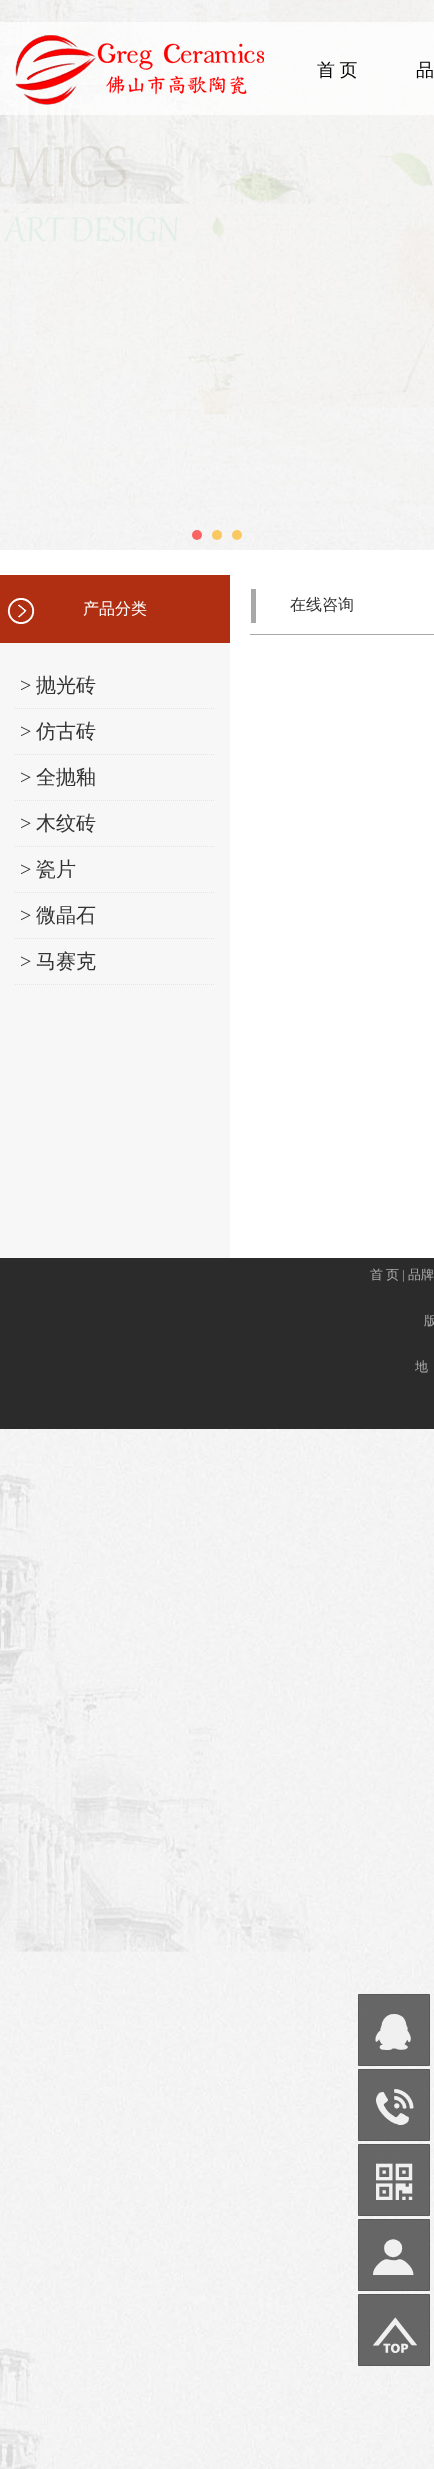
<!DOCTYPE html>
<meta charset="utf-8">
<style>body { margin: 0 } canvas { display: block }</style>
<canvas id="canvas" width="434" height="2469"></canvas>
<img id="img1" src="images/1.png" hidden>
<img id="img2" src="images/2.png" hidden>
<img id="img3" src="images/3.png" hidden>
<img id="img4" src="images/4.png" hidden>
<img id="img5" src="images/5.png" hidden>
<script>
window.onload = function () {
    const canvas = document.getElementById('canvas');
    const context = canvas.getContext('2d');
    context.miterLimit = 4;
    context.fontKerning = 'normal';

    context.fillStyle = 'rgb(255, 255, 255)';
    context.fillRect(0, 0, 434, 2469);
    context.drawImage(document.getElementById('img1'), 0, 0, 434, 2469);
    context.drawImage(document.getElementById('img2'), 0, 0, 434, 535);
    context.fillStyle = 'rgba(255, 0, 0, 0.6)';
    context.beginPath();
    context.arc(197, 535, 5, 0, 2 * Math.PI);
    context.fill();
    context.fillStyle = 'rgba(255, 172, 0, 0.6)';
    context.beginPath();
    context.arc(217, 535, 5, 0, 2 * Math.PI);
    context.fill();
    context.beginPath();
    context.arc(237, 535, 5, 0, 2 * Math.PI);
    context.fill();
    context.drawImage(document.getElementById('img3'), 0, 22, 434, 93);
    context.fillStyle = 'rgb(255, 255, 255)';
    context.fillRect(0, 550, 434, 25);
    context.fillRect(230, 575, 204, 683);
    context.fillStyle = 'rgb(247, 247, 247)';
    context.fillRect(0, 643, 230, 615);
    context.fillStyle = 'rgb(176, 47, 18)';
    context.fillRect(0, 575, 230, 68);
    context.drawImage(document.getElementById('img4'), 7, 598, 28, 26);
    context.beginPath();
    context.moveTo(15, 708.5);
    context.lineTo(215, 708.5);
    context.strokeStyle = 'rgb(223, 229, 238)';
    context.setLineDash([1, 1]);
    context.stroke();
    context.beginPath();
    context.moveTo(15, 754.5);
    context.lineTo(215, 754.5);
    context.stroke();
    context.beginPath();
    context.moveTo(15, 800.5);
    context.lineTo(215, 800.5);
    context.stroke();
    context.beginPath();
    context.moveTo(15, 846.5);
    context.lineTo(215, 846.5);
    context.stroke();
    context.beginPath();
    context.moveTo(15, 892.5);
    context.lineTo(215, 892.5);
    context.stroke();
    context.beginPath();
    context.moveTo(15, 938.5);
    context.lineTo(215, 938.5);
    context.stroke();
    context.beginPath();
    context.moveTo(15, 984.5);
    context.lineTo(215, 984.5);
    context.stroke();
    context.drawImage(document.getElementById('img5'), 250, 589, 184, 46);
    context.fillStyle = 'rgb(43, 43, 43)';
    context.fillRect(0, 1258, 434, 171);
    context.fillStyle = 'rgba(86, 86, 86, 0.9)';
    context.beginPath();
    context.rect(358.5, 1994.5, 71, 71);
    context.fill();
    context.strokeStyle = 'rgb(88, 88, 88)';
    context.setLineDash([]);
    context.stroke();
    context.beginPath();
    context.rect(358.5, 2069.5, 71, 71);
    context.fill();
    context.stroke();
    context.beginPath();
    context.rect(358.5, 2144.5, 71, 71);
    context.fill();
    context.stroke();
    context.beginPath();
    context.rect(358.5, 2219.5, 71, 71);
    context.fill();
    context.stroke();
    context.beginPath();
    context.rect(358.5, 2294.5, 71, 71);
    context.fill();
    context.stroke();
    context.wordSpacing = '-1px';
    context.font = '500 18px WenQuanYi Zen Hei';
    context.fillStyle = 'rgb(0, 0, 0)';
    context.fillText('首 页', 317, 76);
    context.wordSpacing = '0px';
    context.fillText('品', 416, 76);
    context.font = '500 16px WenQuanYi Zen Hei';
    context.fillStyle = 'rgb(255, 255, 255)';
    context.fillText('产品分类', 83, 614);
    context.font = '20px Liberation Serif';
    context.fillStyle = 'rgb(51, 51, 51)';
    context.fillText('>', 20, 692);
    context.font = '500 20px WenQuanYi Zen Hei';
    context.fillText('抛光砖', 36, 692);
    context.font = '20px Liberation Serif';
    context.fillText('>', 20, 738);
    context.font = '500 20px WenQuanYi Zen Hei';
    context.fillText('仿古砖', 36, 738);
    context.font = '20px Liberation Serif';
    context.fillText('>', 20, 784);
    context.font = '500 20px WenQuanYi Zen Hei';
    context.fillText('全抛釉', 36, 784);
    context.font = '20px Liberation Serif';
    context.fillText('>', 20, 830);
    context.font = '500 20px WenQuanYi Zen Hei';
    context.fillText('木纹砖', 36, 830);
    context.font = '20px Liberation Serif';
    context.fillText('>', 20, 876);
    context.font = '500 20px WenQuanYi Zen Hei';
    context.fillText('瓷片', 36, 876);
    context.font = '20px Liberation Serif';
    context.fillText('>', 20, 922);
    context.font = '500 20px WenQuanYi Zen Hei';
    context.fillText('微晶石', 36, 922);
    context.font = '20px Liberation Serif';
    context.fillText('>', 20, 968);
    context.font = '500 20px WenQuanYi Zen Hei';
    context.fillText('马赛克', 36, 968);
    context.font = '500 16px WenQuanYi Zen Hei';
    context.fillText('在线咨询', 290, 610);
    context.wordSpacing = '-1px';
    context.font = '500 13px WenQuanYi Zen Hei';
    context.fillStyle = 'rgb(172, 172, 172)';
    context.fillText('首 页', 370, 1279);
    context.wordSpacing = '0px';
    context.font = '13px Liberation Serif';
    context.fillText('|', 402, 1279);
    context.font = '500 13px WenQuanYi Zen Hei';
    context.fillText('品牌', 408, 1279);
    context.fillText('版', 424, 1325);
    context.fillText('地', 415, 1371);
    context.font = '46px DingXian';
    context.fillStyle = 'rgb(240, 240, 240)';
    context.fillText('Q', 371, 2050);
    context.fillText('y', 376, 2125);
    context.fillText('b', 376, 2200);
    context.fillText('S', 373, 2275);
    context.fillText('u', 384, 2350);
};
</script>
